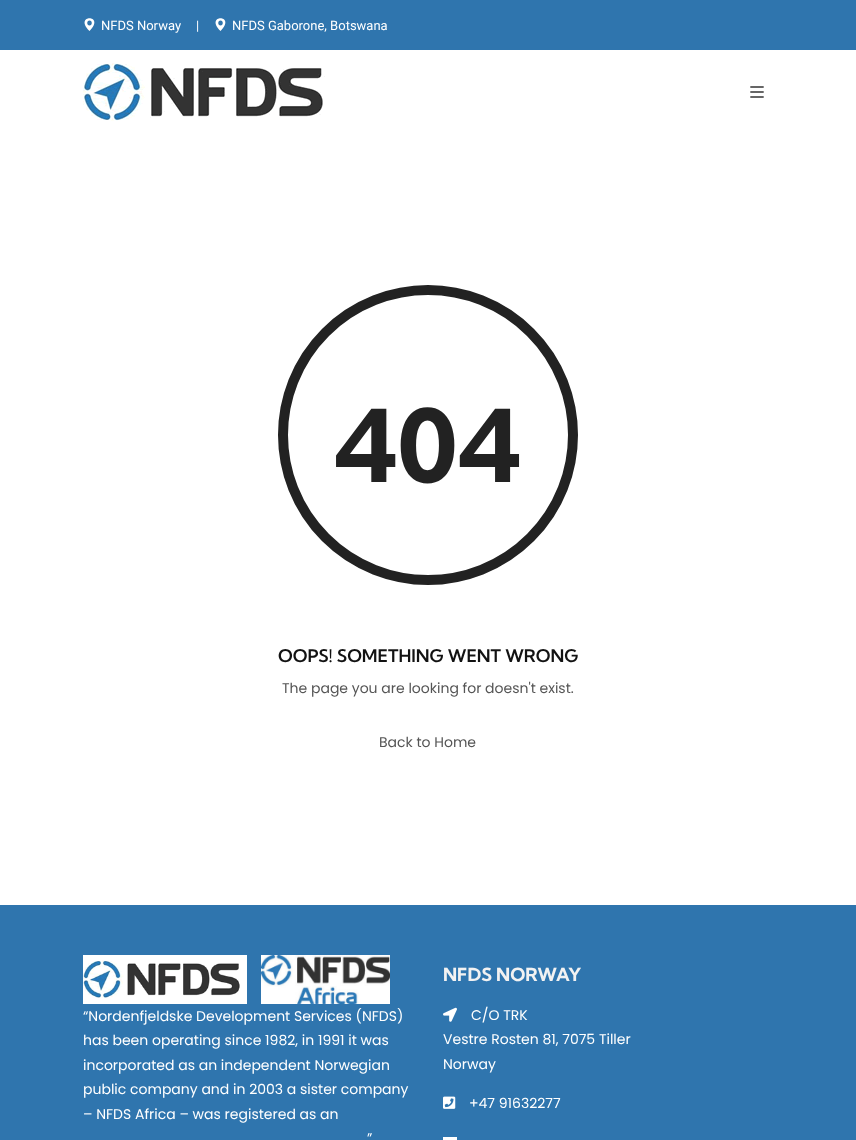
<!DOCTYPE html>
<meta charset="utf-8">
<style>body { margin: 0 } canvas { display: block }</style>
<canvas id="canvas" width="856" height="1140"></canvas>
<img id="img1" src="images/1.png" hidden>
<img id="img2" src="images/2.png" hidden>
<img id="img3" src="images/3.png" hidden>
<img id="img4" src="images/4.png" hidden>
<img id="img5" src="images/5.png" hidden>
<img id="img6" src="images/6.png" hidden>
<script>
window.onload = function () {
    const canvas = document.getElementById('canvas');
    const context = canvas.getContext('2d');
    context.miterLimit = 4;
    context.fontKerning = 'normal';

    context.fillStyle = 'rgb(255, 255, 255)';
    context.fillRect(0, 0, 856, 1140);
    context.fillStyle = 'rgb(47, 117, 174)';
    context.fillRect(0, 0, 856, 50);
    context.fillStyle = 'rgb(255, 255, 255)';
    context.beginPath();
    context.moveTo(89.5, 31);
    context.bezierCurveTo(106.5, 14, 72.5, 14, 89.5, 31);
    context.closePath();
    context.moveTo(89.5, 25.5);
    context.bezierCurveTo(86.5, 25.5, 86.5, 20.5, 89.5, 20.5);
    context.bezierCurveTo(92.5, 20.5, 92.5, 25.5, 89.5, 25.5);
    context.closePath();
    context.fill();
    context.beginPath();
    context.moveTo(220.5, 31);
    context.bezierCurveTo(237.5, 14, 203.5, 14, 220.5, 31);
    context.closePath();
    context.moveTo(220.5, 25.5);
    context.bezierCurveTo(217.5, 25.5, 217.5, 20.5, 220.5, 20.5);
    context.bezierCurveTo(223.5, 20.5, 223.5, 25.5, 220.5, 25.5);
    context.closePath();
    context.fill();
    context.drawImage(document.getElementById('img1'), 83, 63, 242, 58);
    context.drawImage(document.getElementById('img2'), 750, 86, 14, 12);
    context.beginPath();
    context.arc(428, 435, 145, 0, 2 * Math.PI);
    context.strokeStyle = 'rgb(34, 34, 34)';
    context.lineWidth = 10;
    context.stroke();
    context.fillStyle = 'rgb(47, 117, 174)';
    context.fillRect(0, 905, 856, 235);
    context.drawImage(document.getElementById('img3'), 83, 955, 164, 49);
    context.drawImage(document.getElementById('img4'), 261, 955, 129, 49);
    context.drawImage(document.getElementById('img5'), 443, 1007, 14, 15);
    context.drawImage(document.getElementById('img6'), 443, 1096, 13, 13);
    context.fillStyle = 'rgb(255, 255, 255)';
    context.fillRect(443, 1137, 14, 3);
    context.font = '13px Roboto';
    context.fillText('NFDS Norway', 101, 30);
    context.fillText('|', 196, 30);
    context.fillText('NFDS Gaborone, Botswana', 232, 30);
    context.font = 'bold 100px Kumbh Sans';
    context.fillStyle = 'rgb(34, 34, 34)';
    context.fillText('404', 334, 482);
    context.font = '600 17.5px Kumbh Sans';
    context.fillStyle = 'rgb(18, 18, 18)';
    context.fillText('OOPS! SOMETHING WENT WRONG', 278, 662);
    context.font = '14px Poppins';
    context.fillStyle = 'rgb(85, 85, 85)';
    context.fillText('The page you are looking for doesn\'t exist.', 282, 693);
    context.fillText('Back to Home', 379, 747);
    context.fillStyle = 'rgb(255, 255, 255)';
    context.fillText('“Nordenfjeldske Development Services (NFDS)', 83, 1021);
    context.fillText('has been operating since 1982, in 1991 it was', 83, 1045);
    context.fillText('incorporated as an independent Norwegian', 83, 1070);
    context.fillText('public company and in 2003 a sister company', 83, 1094);
    context.fillText('– NFDS Africa – was registered as an', 83, 1119);
    context.fillText('”', 367, 1143);
    context.font = 'bold 18px Kumbh Sans';
    context.fillStyle = 'rgb(242, 242, 242)';
    context.fillText('NFDS NORWAY', 443, 981);
    context.font = '14px Poppins';
    context.fillStyle = 'rgb(255, 255, 255)';
    context.fillText('C/O TRK', 471, 1020);
    context.fillText('Vestre Rosten 81, 7075 Tiller', 443, 1044);
    context.fillText('Norway', 443, 1069);
    context.fillText('+47 91632277', 469, 1108);
};
</script>
